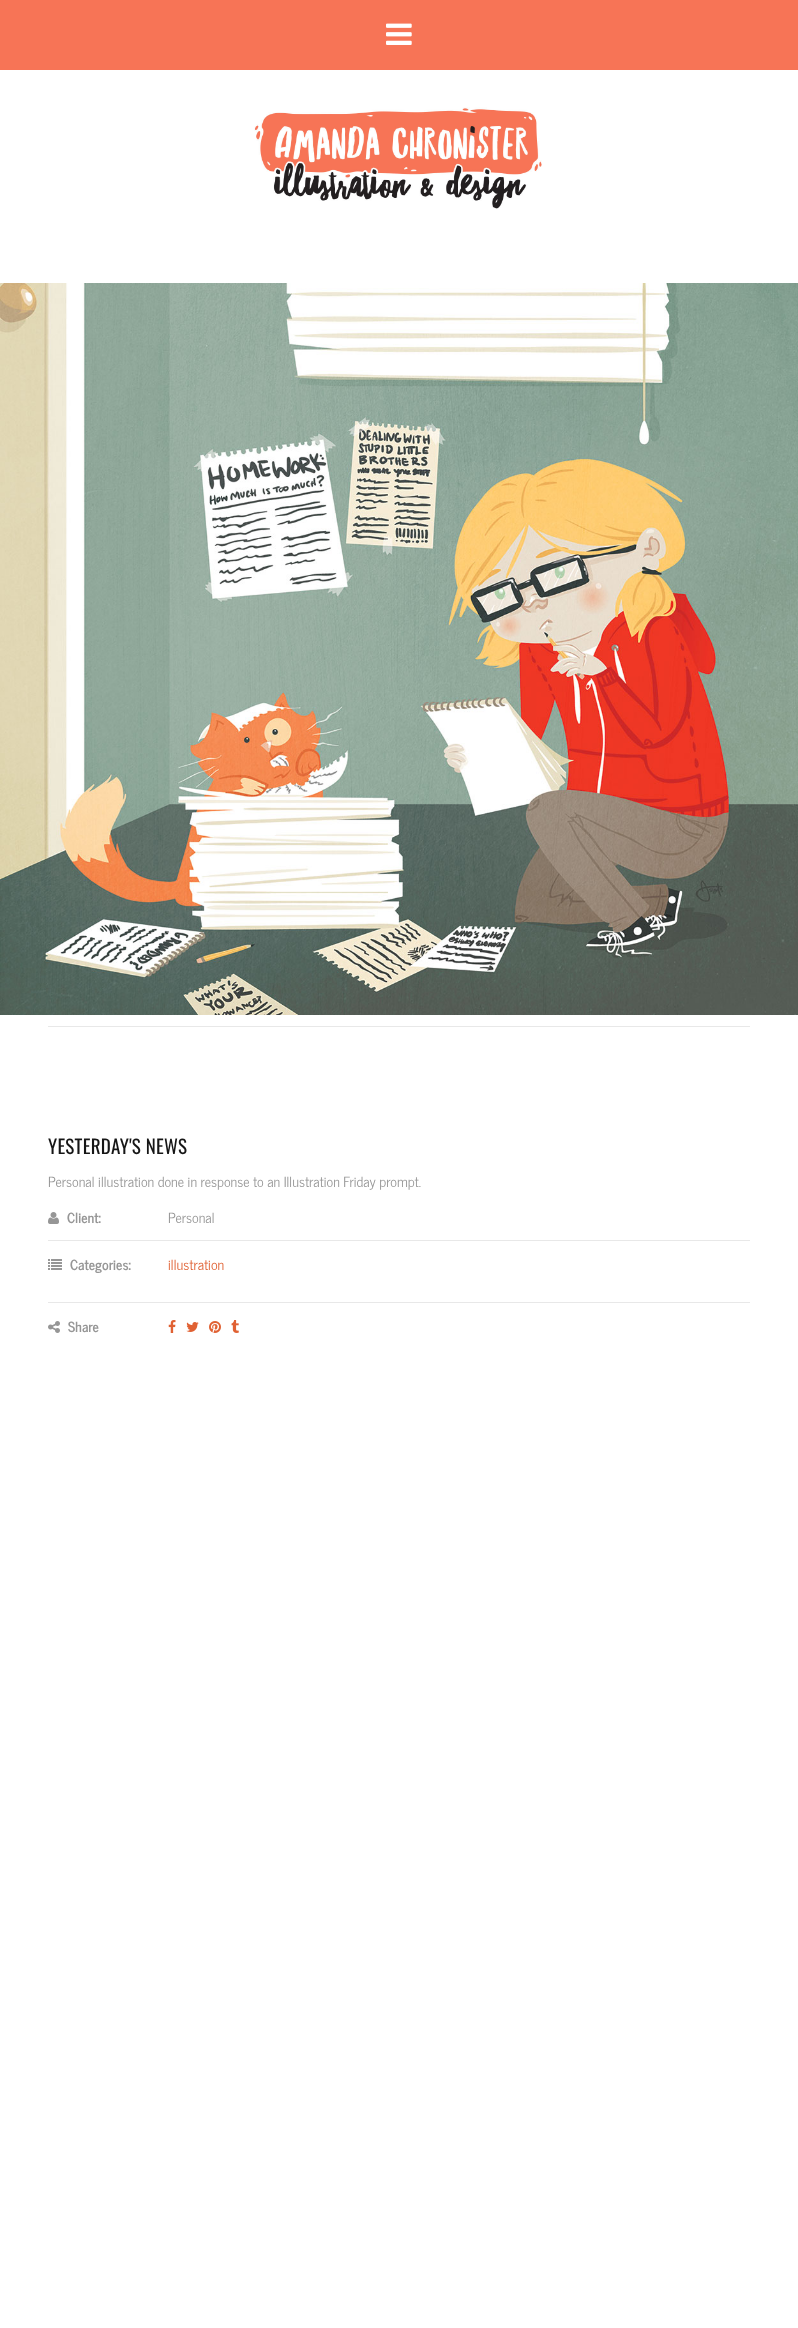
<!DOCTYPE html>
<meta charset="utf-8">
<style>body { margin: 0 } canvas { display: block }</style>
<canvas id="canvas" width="798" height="2328"></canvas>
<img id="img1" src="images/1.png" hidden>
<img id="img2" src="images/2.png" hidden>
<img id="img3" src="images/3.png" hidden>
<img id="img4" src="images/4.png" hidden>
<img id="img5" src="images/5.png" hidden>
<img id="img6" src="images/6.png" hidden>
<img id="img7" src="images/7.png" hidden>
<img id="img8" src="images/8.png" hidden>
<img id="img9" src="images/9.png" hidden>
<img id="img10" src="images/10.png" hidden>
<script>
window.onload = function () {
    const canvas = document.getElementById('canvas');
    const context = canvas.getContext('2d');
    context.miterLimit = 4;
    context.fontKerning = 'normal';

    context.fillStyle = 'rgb(255, 255, 255)';
    context.fillRect(0, 0, 798, 2328);
    context.fillStyle = 'rgb(247, 116, 86)';
    context.fillRect(0, 0, 798, 70);
    context.drawImage(document.getElementById('img1'), 386, 23, 26, 22);
    context.drawImage(document.getElementById('img2'), 254, 107, 288, 102);
    context.drawImage(document.getElementById('img3'), 0, 283, 798, 732);
    context.fillStyle = 'rgb(232, 232, 232)';
    context.fillRect(48, 1026, 702, 1);
    context.fillRect(48, 1240, 702, 1);
    context.drawImage(document.getElementById('img4'), 48, 1212, 11, 12);
    context.fillRect(48, 1302, 702, 1);
    context.drawImage(document.getElementById('img5'), 48, 1259, 14, 11);
    context.drawImage(document.getElementById('img6'), 48, 1321, 12, 12);
    context.drawImage(document.getElementById('img7'), 168, 1320, 8, 13);
    context.drawImage(document.getElementById('img8'), 186, 1322, 13, 10);
    context.drawImage(document.getElementById('img9'), 209, 1321, 12, 12);
    context.drawImage(document.getElementById('img10'), 231, 1320, 8, 13);
    context.letterSpacing = '0.25px';
    context.font = '19px Oswald';
    context.fillStyle = 'rgb(22, 22, 22)';
    context.fillText('YESTERDAY\'S NEWS', 48, 1154);
    context.letterSpacing = '0px';
    context.font = '14px News Cycle';
    context.fillStyle = 'rgb(150, 150, 150)';
    context.fillText('Personal illustration done in response to an Illustration Friday prompt.', 48, 1187);
    context.font = 'bold 14px News Cycle';
    context.fillText('Client:', 67, 1223);
    context.font = '14px News Cycle';
    context.fillText('Personal', 168, 1223);
    context.font = 'bold 14px News Cycle';
    context.fillText('Categories:', 70, 1270);
    context.font = '14px News Cycle';
    context.fillStyle = 'rgb(224, 97, 51)';
    context.fillText('illustration', 168, 1270);
    context.font = 'bold 14px News Cycle';
    context.fillStyle = 'rgb(150, 150, 150)';
    context.fillText('Share', 68, 1332);
};
</script>
